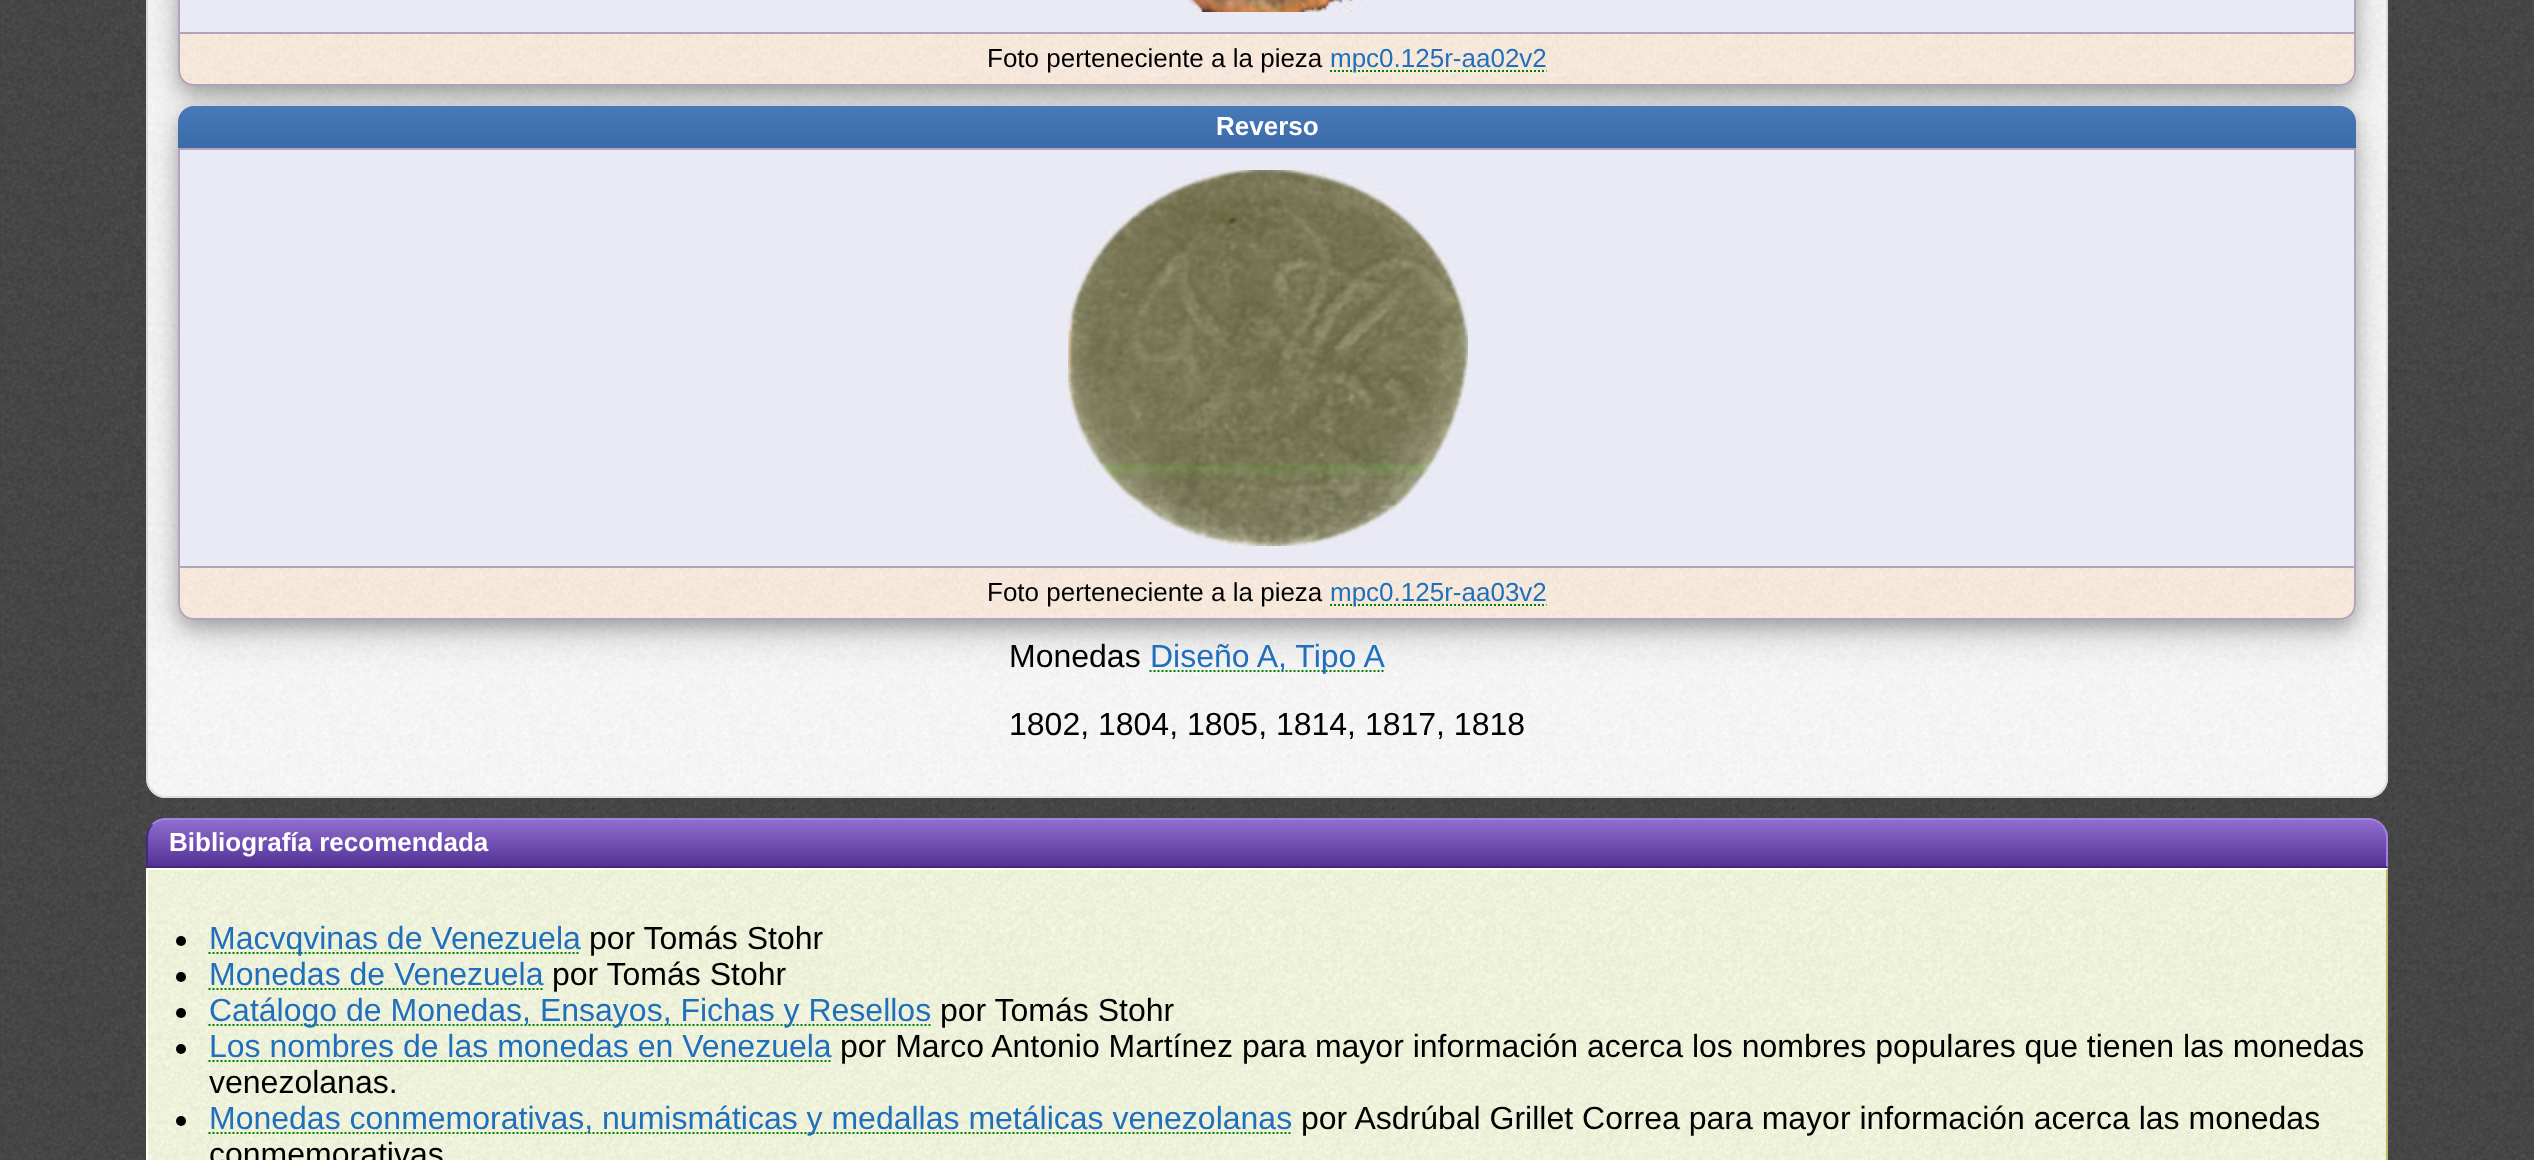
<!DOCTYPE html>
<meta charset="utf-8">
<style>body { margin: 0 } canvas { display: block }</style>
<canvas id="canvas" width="2534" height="1160"></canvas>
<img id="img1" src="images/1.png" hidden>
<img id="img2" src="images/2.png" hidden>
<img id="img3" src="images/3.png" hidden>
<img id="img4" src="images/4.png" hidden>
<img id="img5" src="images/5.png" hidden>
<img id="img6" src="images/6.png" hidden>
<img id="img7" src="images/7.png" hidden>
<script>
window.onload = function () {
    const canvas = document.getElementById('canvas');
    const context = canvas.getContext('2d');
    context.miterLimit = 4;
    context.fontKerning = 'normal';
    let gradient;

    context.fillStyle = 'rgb(255, 255, 255)';
    context.fillRect(0, 0, 2534, 1160);
    context.drawImage(document.getElementById('img1'), 0, 0, 2534, 1160);
    context.drawImage(document.getElementById('img2'), 146, 0, 2242, 798);
    context.beginPath();
    context.roundRect(147, -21, 2240, 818, 19);
    context.strokeStyle = 'rgb(220, 220, 220)';
    context.lineWidth = 2;
    context.stroke();
    context.fillStyle = 'rgba(0, 0, 0, 0.19)';
    context.filter = 'blur(20px)';
    context.beginPath();
    context.roundRect(178, -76, 2178, 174, 16);
    context.fill();
    context.filter = 'none';
    context.fillStyle = 'rgba(0, 0, 0, 0.2)';
    context.filter = 'blur(8px)';
    context.beginPath();
    context.roundRect(178, -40, 2178, 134, 16);
    context.fill();
    context.filter = 'none';
    context.fillStyle = 'rgb(234, 234, 244)';
    context.beginPath();
    context.rect(179, -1, 2176, 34);
    context.fill();
    context.strokeStyle = 'rgb(177, 163, 188)';
    context.stroke();
    context.drawImage(document.getElementById('img3'), 1188, 0, 176, 12);
    context.drawImage(document.getElementById('img4'), 178, 34, 2178, 52);
    context.fillStyle = 'rgb(177, 163, 188)';
    context.beginPath();
    context.moveTo(178, 34);
    context.lineTo(2356, 34);
    context.lineTo(2356, 70);
    context.bezierCurveTo(2356, 79, 2349, 86, 2340, 86);
    context.lineTo(194, 86);
    context.bezierCurveTo(185, 86, 178, 79, 178, 70);
    context.closePath();
    context.moveTo(180, 34);
    context.lineTo(2354, 34);
    context.lineTo(2354, 70);
    context.bezierCurveTo(2354, 78, 2348, 84, 2340, 84);
    context.lineTo(194, 84);
    context.bezierCurveTo(186, 84, 180, 78, 180, 70);
    context.closePath();
    context.fill('evenodd');
    context.fillStyle = 'rgba(0, 0, 0, 0.19)';
    context.filter = 'blur(20px)';
    context.beginPath();
    context.roundRect(178, 118, 2178, 514, 16);
    context.fill();
    context.filter = 'none';
    context.beginPath();
    context.moveTo(1330, 71);
    context.lineTo(1546.5, 71);
    context.strokeStyle = 'rgb(0, 128, 0)';
    context.setLineDash([2, 2]);
    context.stroke();
    context.fillStyle = 'rgba(0, 0, 0, 0.2)';
    context.filter = 'blur(8px)';
    context.beginPath();
    context.roundRect(178, 114, 2178, 514, 16);
    context.fill();
    context.filter = 'none';
    gradient = context.createLinearGradient(1267, 148, 1267, 106);
    gradient.addColorStop(0, 'rgb(59, 107, 169)');
    gradient.addColorStop(1, 'rgb(72, 121, 184)');
    context.fillStyle = gradient;
    context.beginPath();
    context.roundRect(178, 106, 2178, 42, [16, 16, 0, 0]);
    context.fill();
    context.fillStyle = 'rgb(234, 234, 244)';
    context.beginPath();
    context.rect(179, 149, 2176, 418);
    context.fill();
    context.strokeStyle = 'rgb(177, 163, 188)';
    context.setLineDash([]);
    context.stroke();
    context.drawImage(document.getElementById('img5'), 1068, 170, 400, 376);
    context.drawImage(document.getElementById('img6'), 178, 568, 2178, 52);
    context.fillStyle = 'rgb(177, 163, 188)';
    context.beginPath();
    context.moveTo(178, 568);
    context.lineTo(2356, 568);
    context.lineTo(2356, 604);
    context.bezierCurveTo(2356, 613, 2349, 620, 2340, 620);
    context.lineTo(194, 620);
    context.bezierCurveTo(185, 620, 178, 613, 178, 604);
    context.closePath();
    context.moveTo(180, 568);
    context.lineTo(2354, 568);
    context.lineTo(2354, 604);
    context.bezierCurveTo(2354, 612, 2348, 618, 2340, 618);
    context.lineTo(194, 618);
    context.bezierCurveTo(186, 618, 180, 612, 180, 604);
    context.closePath();
    context.fill('evenodd');
    context.beginPath();
    context.moveTo(1330, 605);
    context.lineTo(1546.5, 605);
    context.strokeStyle = 'rgb(0, 128, 0)';
    context.setLineDash([2, 2]);
    context.stroke();
    context.beginPath();
    context.moveTo(1149.5, 671);
    context.lineTo(1384.5, 671);
    context.stroke();
    context.save();
    context.beginPath();
    context.roundRect(146, 818, 2242, 50, [20, 20, 0, 0]);
    context.clip();
    gradient = context.createLinearGradient(1267, 866, 1267, 820);
    gradient.addColorStop(0, 'rgb(84, 49, 149)');
    gradient.addColorStop(1, 'rgb(144, 110, 208)');
    context.fillStyle = gradient;
    context.fillRect(146, 820, 2242, 46);
    context.restore();
    context.fillStyle = 'rgb(162, 128, 227)';
    context.beginPath();
    context.moveTo(166, 818);
    context.bezierCurveTo(160, 818, 156, 820, 152, 824);
    context.lineTo(153, 825);
    context.bezierCurveTo(156, 822, 161, 820, 166, 820);
    context.lineTo(2368, 820);
    context.bezierCurveTo(2373, 820, 2378, 822, 2381, 825);
    context.lineTo(2382, 824);
    context.bezierCurveTo(2378, 820, 2374, 818, 2368, 818);
    context.closePath();
    context.fill();
    context.beginPath();
    context.moveTo(2388, 868);
    context.lineTo(2388, 838);
    context.bezierCurveTo(2388, 832, 2386, 828, 2382, 824);
    context.lineTo(2381, 825);
    context.bezierCurveTo(2384, 828, 2386, 833, 2386, 838);
    context.lineTo(2386, 866);
    context.closePath();
    context.fill();
    context.fillStyle = 'rgb(70, 38, 129)';
    context.beginPath();
    context.moveTo(2388, 868);
    context.lineTo(2386, 866);
    context.lineTo(148, 866);
    context.lineTo(146, 868);
    context.closePath();
    context.fill();
    context.beginPath();
    context.moveTo(146, 868);
    context.lineTo(148, 866);
    context.lineTo(148, 838);
    context.bezierCurveTo(148, 833, 150, 828, 153, 825);
    context.lineTo(152, 824);
    context.bezierCurveTo(148, 828, 146, 832, 146, 838);
    context.closePath();
    context.fill();
    context.drawImage(document.getElementById('img7'), 146, 868, 2242, 292);
    context.fillStyle = 'rgb(255, 255, 240)';
    context.beginPath();
    context.moveTo(146, 868);
    context.lineTo(148, 870);
    context.lineTo(2386, 870);
    context.lineTo(2388, 868);
    context.closePath();
    context.fill();
    context.fillStyle = 'rgb(189, 183, 107)';
    context.beginPath();
    context.moveTo(2388, 868);
    context.lineTo(2386, 870);
    context.lineTo(2386, 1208);
    context.bezierCurveTo(2386, 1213, 2384, 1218, 2381, 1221);
    context.lineTo(2382, 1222);
    context.bezierCurveTo(2386, 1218, 2388, 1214, 2388, 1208);
    context.closePath();
    context.fill();
    context.fillStyle = 'rgb(255, 255, 240)';
    context.beginPath();
    context.moveTo(148, 870);
    context.lineTo(146, 868);
    context.lineTo(146, 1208);
    context.bezierCurveTo(146, 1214, 148, 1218, 152, 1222);
    context.lineTo(153, 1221);
    context.bezierCurveTo(150, 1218, 148, 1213, 148, 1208);
    context.closePath();
    context.fill();
    context.fillStyle = 'rgb(0, 0, 0)';
    context.beginPath();
    context.arc(181, 941, 5, 0, 2 * Math.PI);
    context.fill();
    context.beginPath();
    context.moveTo(208.5, 953);
    context.lineTo(580.5, 953);
    context.stroke();
    context.beginPath();
    context.arc(181, 977, 5, 0, 2 * Math.PI);
    context.fill();
    context.beginPath();
    context.moveTo(208.5, 989);
    context.lineTo(543, 989);
    context.stroke();
    context.beginPath();
    context.arc(181, 1013, 5, 0, 2 * Math.PI);
    context.fill();
    context.beginPath();
    context.moveTo(208.5, 1025);
    context.lineTo(931, 1025);
    context.stroke();
    context.beginPath();
    context.arc(181, 1049, 5, 0, 2 * Math.PI);
    context.fill();
    context.beginPath();
    context.moveTo(208.5, 1061);
    context.lineTo(831.5, 1061);
    context.stroke();
    context.beginPath();
    context.arc(181, 1121, 5, 0, 2 * Math.PI);
    context.fill();
    context.beginPath();
    context.moveTo(208.5, 1133);
    context.lineTo(1292, 1133);
    context.stroke();
    context.font = '26px Liberation Sans';
    context.fillText('Foto perteneciente a la pieza', 987, 67);
    context.fillStyle = 'rgb(31, 111, 188)';
    context.fillText('mpc0.125r-aa02v2', 1330, 67);
    context.font = 'bold 26px Liberation Sans';
    context.fillStyle = 'rgb(255, 255, 255)';
    context.fillText('Reverso', 1216, 135);
    context.font = '26px Liberation Sans';
    context.fillStyle = 'rgb(0, 0, 0)';
    context.fillText('Foto perteneciente a la pieza', 987, 601);
    context.fillStyle = 'rgb(31, 111, 188)';
    context.fillText('mpc0.125r-aa03v2', 1330, 601);
    context.font = '32px Liberation Sans';
    context.fillStyle = 'rgb(0, 0, 0)';
    context.fillText('Monedas', 1009, 667);
    context.fillStyle = 'rgb(31, 111, 188)';
    context.fillText('Diseño A, Tipo A', 1150, 667);
    context.fillStyle = 'rgb(0, 0, 0)';
    context.fillText('1802, 1804, 1805, 1814, 1817, 1818', 1009, 735);
    context.font = 'bold 26px Liberation Sans';
    context.fillStyle = 'rgb(255, 255, 255)';
    context.fillText('Bibliografía recomendada', 169, 851);
    context.font = '32px Liberation Sans';
    context.fillStyle = 'rgb(31, 111, 188)';
    context.fillText('Macvqvinas de Venezuela', 209, 949);
    context.fillStyle = 'rgb(0, 0, 0)';
    context.fillText('por Tomás Stohr', 589, 949);
    context.fillStyle = 'rgb(31, 111, 188)';
    context.fillText('Monedas de Venezuela', 209, 985);
    context.fillStyle = 'rgb(0, 0, 0)';
    context.fillText('por Tomás Stohr', 552, 985);
    context.fillStyle = 'rgb(31, 111, 188)';
    context.fillText('Catálogo de Monedas, Ensayos, Fichas y Resellos', 209, 1021);
    context.fillStyle = 'rgb(0, 0, 0)';
    context.fillText('por Tomás Stohr', 940, 1021);
    context.fillStyle = 'rgb(31, 111, 188)';
    context.fillText('Los nombres de las monedas en Venezuela', 209, 1057);
    context.fillStyle = 'rgb(0, 0, 0)';
    context.fillText('por Marco Antonio Martínez para mayor información acerca los nombres populares que tienen las monedas', 840, 1057);
    context.fillText('venezolanas.', 209, 1093);
    context.fillStyle = 'rgb(31, 111, 188)';
    context.fillText('Monedas conmemorativas, numismáticas y medallas metálicas venezolanas', 209, 1129);
    context.fillStyle = 'rgb(0, 0, 0)';
    context.fillText('por Asdrúbal Grillet Correa para mayor información acerca las monedas', 1301, 1129);
    context.fillText('conmemorativas', 209, 1165);
};
</script>
